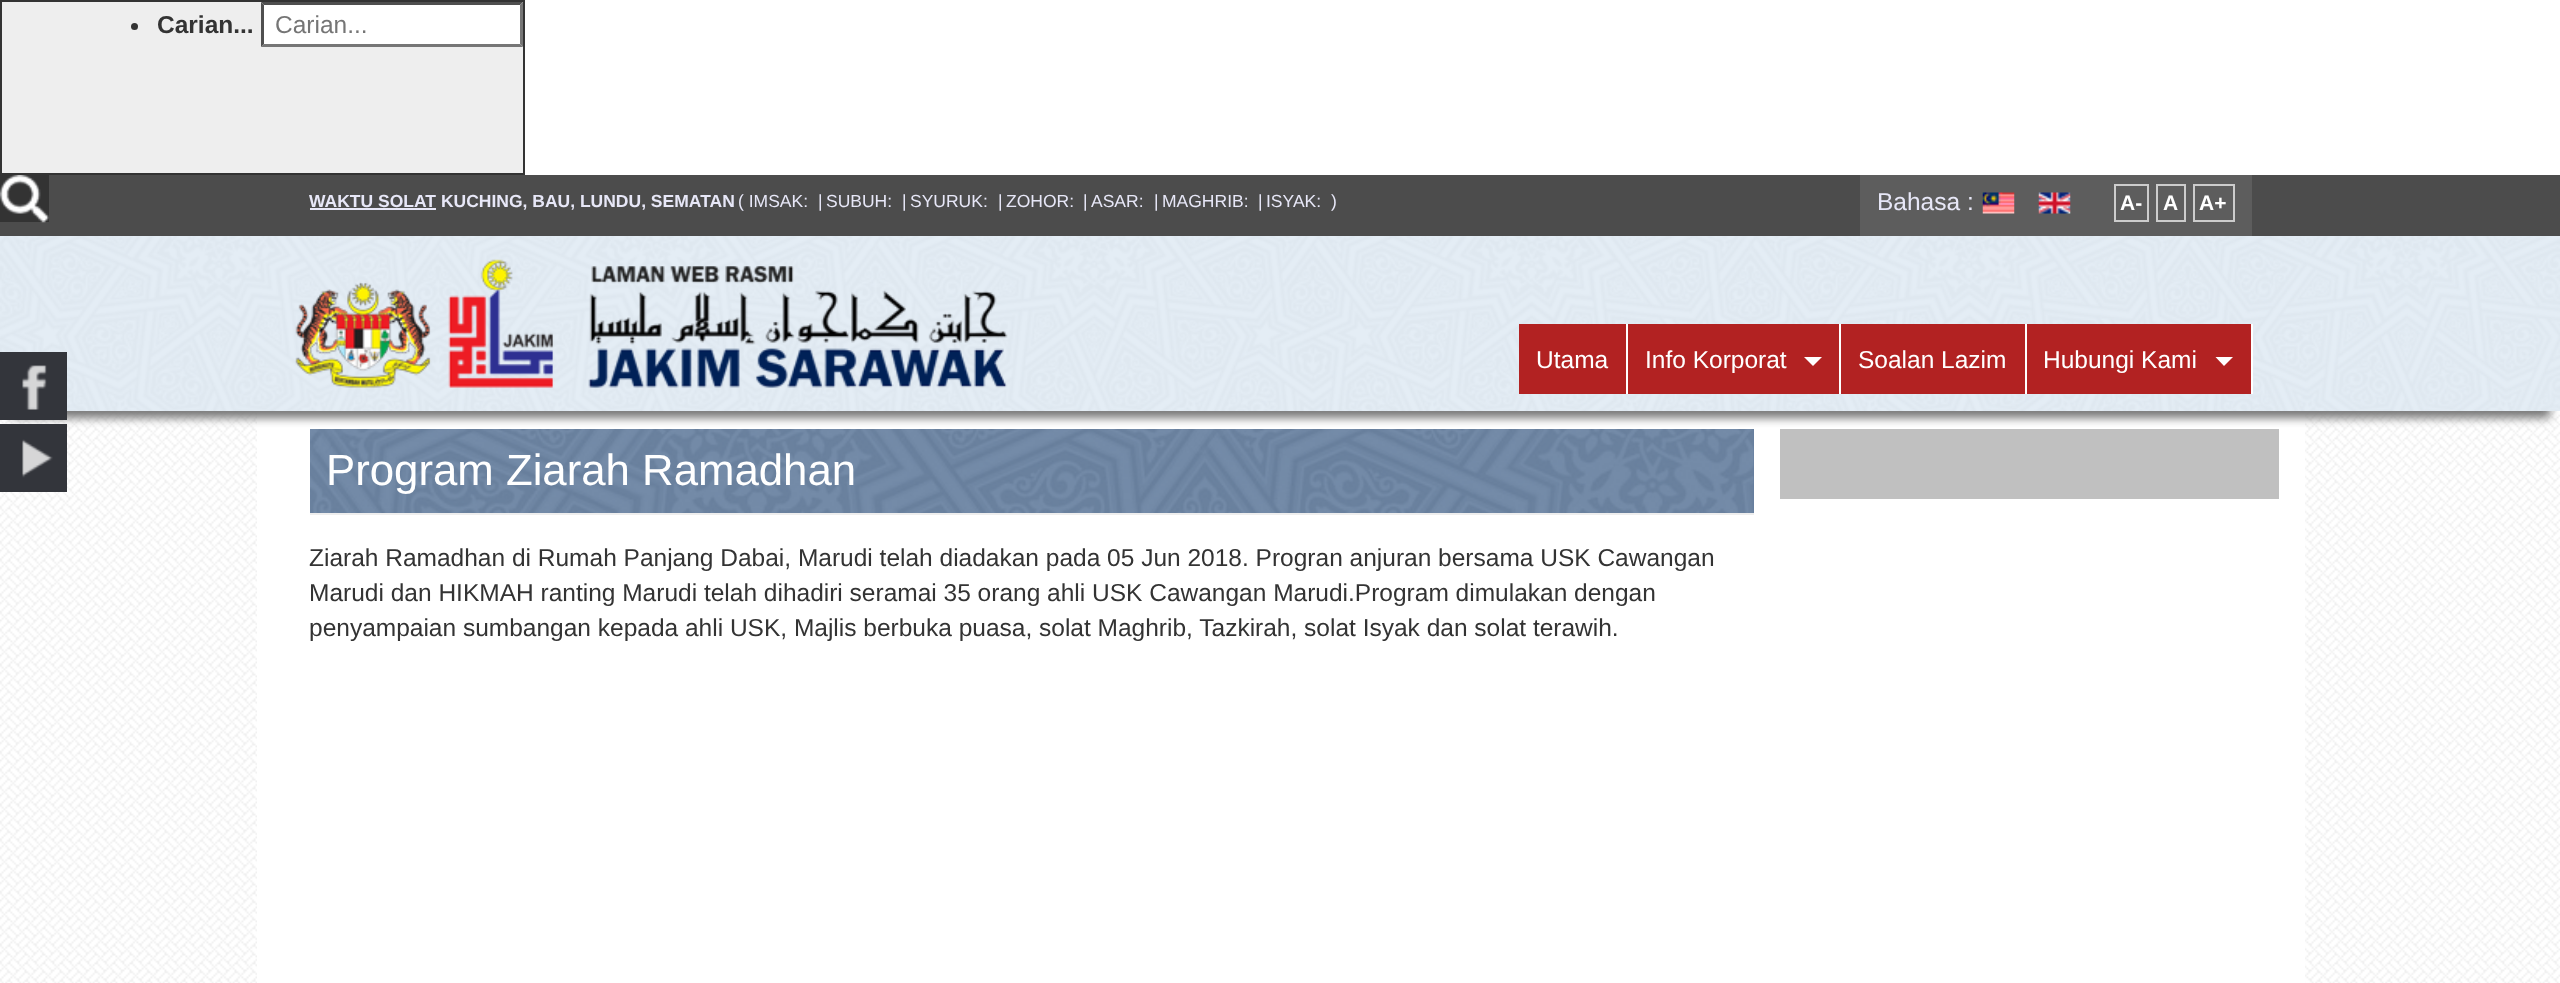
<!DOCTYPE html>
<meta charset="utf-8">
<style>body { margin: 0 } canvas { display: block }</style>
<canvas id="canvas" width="2560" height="983"></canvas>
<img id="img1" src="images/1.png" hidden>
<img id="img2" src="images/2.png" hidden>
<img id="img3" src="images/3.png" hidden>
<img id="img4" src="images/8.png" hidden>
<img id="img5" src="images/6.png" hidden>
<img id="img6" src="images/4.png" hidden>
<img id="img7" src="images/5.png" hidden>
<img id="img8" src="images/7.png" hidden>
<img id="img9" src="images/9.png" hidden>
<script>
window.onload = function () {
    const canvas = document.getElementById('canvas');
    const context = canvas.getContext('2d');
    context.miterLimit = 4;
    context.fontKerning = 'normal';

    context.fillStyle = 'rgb(255, 255, 255)';
    context.fillRect(0, 0, 2560, 983);
    context.fillStyle = 'rgb(238, 238, 238)';
    context.beginPath();
    context.rect(1, 1, 523, 173);
    context.fill();
    context.strokeStyle = 'rgb(51, 51, 51)';
    context.lineWidth = 2;
    context.stroke();
    context.fillStyle = 'rgb(51, 51, 51)';
    context.beginPath();
    context.arc(134.5, 26.5, 3.5, 0, 2 * Math.PI);
    context.fill();
    context.fillStyle = 'rgb(255, 255, 255)';
    context.fillRect(261, 2, 262, 45);
    context.fillStyle = 'rgb(79, 79, 79)';
    context.beginPath();
    context.moveTo(261, 2);
    context.lineTo(523, 2);
    context.lineTo(520, 5);
    context.lineTo(264, 5);
    context.closePath();
    context.fill();
    context.fillStyle = 'rgb(118, 118, 118)';
    context.beginPath();
    context.moveTo(523, 2);
    context.lineTo(523, 47);
    context.lineTo(520, 44);
    context.lineTo(520, 5);
    context.closePath();
    context.fill();
    context.beginPath();
    context.moveTo(523, 47);
    context.lineTo(261, 47);
    context.lineTo(264, 44);
    context.lineTo(520, 44);
    context.closePath();
    context.fill();
    context.fillStyle = 'rgb(79, 79, 79)';
    context.beginPath();
    context.moveTo(261, 47);
    context.lineTo(261, 2);
    context.lineTo(264, 5);
    context.lineTo(264, 44);
    context.closePath();
    context.fill();
    context.fillStyle = 'rgb(76, 76, 76)';
    context.fillRect(0, 175, 2560, 61);
    context.fillStyle = 'rgb(51, 51, 51)';
    context.fillRect(0, 175, 49, 47);
    context.drawImage(document.getElementById('img1'), 0, 175, 49, 48);
    context.fillStyle = 'rgb(231, 231, 247)';
    context.fillRect(310, 208, 126, 2);
    context.fillStyle = 'rgb(93, 93, 93)';
    context.fillRect(1860, 175, 392, 61);
    context.drawImage(document.getElementById('img2'), 1982, 192, 33, 22);
    context.drawImage(document.getElementById('img3'), 2038, 192, 33, 22);
    context.strokeStyle = 'rgb(204, 204, 204)';
    context.strokeRect(2115, 185, 33, 36);
    context.strokeRect(2157, 185, 28, 36);
    context.strokeRect(2194, 185, 40, 36);
    context.drawImage(document.getElementById('img4'), 0, 411, 2560, 572);
    context.fillStyle = 'rgb(255, 255, 255)';
    context.fillRect(257, 411, 2048, 572);
    context.fillStyle = 'rgb(119, 119, 119)';
    context.filter = 'blur(5px)';
    context.beginPath();
    context.rect(11, 264, 2539, 154);
    context.fill();
    context.filter = 'none';
    context.fillStyle = 'rgb(227, 237, 245)';
    context.fillRect(0, 236, 2560, 175);
    context.drawImage(document.getElementById('img5'), 0, 236, 2560, 175);
    context.fillStyle = 'rgb(51, 53, 59)';
    context.fillRect(0, 352, 67, 68);
    context.drawImage(document.getElementById('img6'), 22, 365, 25, 45);
    context.fillRect(0, 424, 67, 68);
    context.drawImage(document.getElementById('img7'), 22, 439, 31, 39);
    context.drawImage(document.getElementById('img8'), 295, 259, 713, 129);
    context.fillStyle = 'rgb(178, 34, 34)';
    context.fillRect(1519, 324, 732, 70);
    context.fillStyle = 'rgb(255, 255, 255)';
    context.fillRect(1626, 324, 2, 70);
    context.fillRect(1839, 324, 2, 70);
    context.beginPath();
    context.moveTo(1804, 357);
    context.lineTo(1822, 357);
    context.lineTo(1813, 366);
    context.closePath();
    context.fill();
    context.fillRect(2025, 324, 2, 70);
    context.fillRect(2251, 324, 2, 70);
    context.beginPath();
    context.moveTo(2215.5, 357);
    context.lineTo(2233, 357);
    context.lineTo(2224, 366);
    context.closePath();
    context.fill();
    context.fillStyle = 'rgb(101, 126, 159)';
    context.fillRect(310, 429, 1444, 84);
    context.drawImage(document.getElementById('img9'), 310, 429, 1444, 84);
    context.fillStyle = 'rgb(238, 238, 238)';
    context.fillRect(310, 513, 1444, 2);
    context.fillStyle = 'rgb(192, 192, 192)';
    context.fillRect(1780, 429, 499, 70);
    context.font = 'bold 24.5px Liberation Sans';
    context.fillStyle = 'rgb(51, 51, 51)';
    context.fillText('Carian...', 157, 33);
    context.font = '24.5px Liberation Sans';
    context.fillStyle = 'rgb(117, 117, 117)';
    context.fillText('Carian...', 275, 33);
    context.font = 'bold 17.5px Liberation Sans';
    context.fillStyle = 'rgb(231, 231, 247)';
    context.fillText('WAKTU SOLAT KUCHING, BAU, LUNDU, SEMATAN', 309, 207);
    context.font = '17.5px Liberation Sans';
    context.fillText('( IMSAK:', 738, 207);
    context.fillText('|', 818, 207);
    context.fillText('SUBUH:', 826, 207);
    context.fillText('|', 902, 207);
    context.fillText('SYURUK:', 910, 207);
    context.fillText('|', 998, 207);
    context.fillText('ZOHOR:', 1006, 207);
    context.fillText('|', 1083, 207);
    context.fillText('ASAR:', 1091, 207);
    context.fillText('|', 1154, 207);
    context.fillText('MAGHRIB:', 1162, 207);
    context.fillText('|', 1258, 207);
    context.fillText('ISYAK:', 1266, 207);
    context.fillText(')', 1331, 207);
    context.font = '24.5px Liberation Sans';
    context.fillText('Bahasa :', 1877, 210);
    context.font = 'bold 21px Liberation Sans';
    context.fillStyle = 'rgb(255, 255, 255)';
    context.fillText('A-', 2120, 210);
    context.fillText('A', 2163, 210);
    context.fillText('A+', 2199, 210);
    context.font = '24.5px Liberation Sans';
    context.fillText('Utama', 1536, 368);
    context.fillText('Info Korporat', 1645, 368);
    context.fillText('Soalan Lazim', 1858, 368);
    context.fillText('Hubungi Kami', 2043, 368);
    context.font = '43.75px Liberation Sans';
    context.fillText('Program Ziarah Ramadhan', 326, 485);
    context.font = '24.5px Liberation Sans';
    context.fillStyle = 'rgb(51, 51, 51)';
    context.fillText('Ziarah Ramadhan di Rumah Panjang Dabai, Marudi telah diadakan pada 05 Jun 2018. Progran anjuran bersama USK Cawangan', 309, 566);
    context.fillText('Marudi dan HIKMAH ranting Marudi telah dihadiri seramai 35 orang ahli USK Cawangan Marudi.Program dimulakan dengan', 309, 601);
    context.fillText('penyampaian sumbangan kepada ahli USK, Majlis berbuka puasa, solat Maghrib, Tazkirah, solat Isyak dan solat terawih.', 309, 636);
};
</script>
